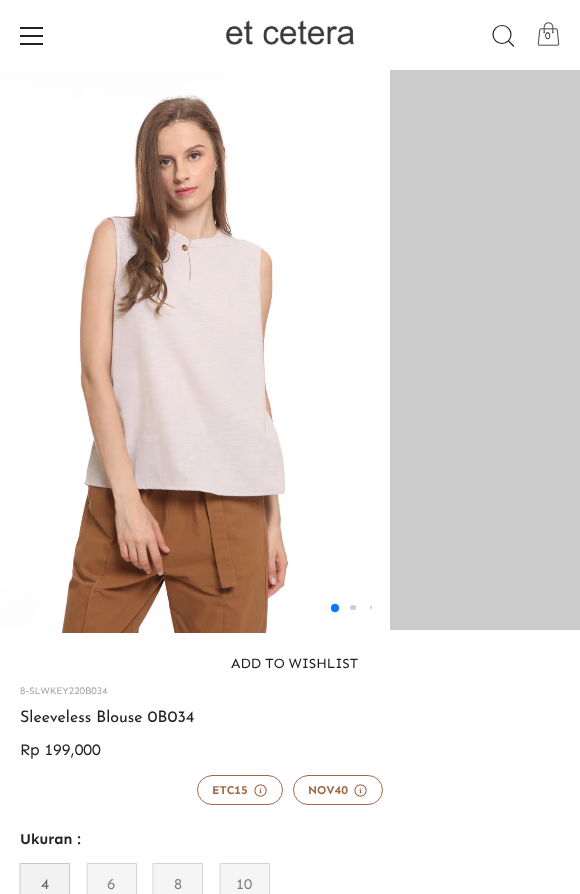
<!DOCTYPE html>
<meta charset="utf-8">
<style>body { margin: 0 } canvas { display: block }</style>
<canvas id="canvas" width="580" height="894"></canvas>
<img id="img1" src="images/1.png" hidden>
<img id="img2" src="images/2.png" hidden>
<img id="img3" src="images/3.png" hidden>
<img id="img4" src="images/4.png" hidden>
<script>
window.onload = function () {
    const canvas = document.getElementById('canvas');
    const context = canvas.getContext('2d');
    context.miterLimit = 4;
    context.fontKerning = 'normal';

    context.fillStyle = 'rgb(255, 255, 255)';
    context.fillRect(0, 0, 580, 894);
    context.fillStyle = 'rgb(33, 33, 33)';
    context.fillRect(20, 27, 23, 2);
    context.fillRect(20, 35, 23, 2);
    context.fillRect(20, 43, 23, 2);
    context.drawImage(document.getElementById('img1'), 225, 20, 129, 25);
    context.beginPath();
    context.arc(502, 34.5, 9, 0, 2 * Math.PI);
    context.strokeStyle = 'rgb(33, 33, 33)';
    context.lineWidth = 1.2;
    context.stroke();
    context.beginPath();
    context.moveTo(513.5, 46);
    context.lineTo(508.5, 41);
    context.lineCap = 'round';
    context.lineJoin = 'round';
    context.stroke();
    context.drawImage(document.getElementById('img2'), 537, 22, 23, 24);
    context.fillStyle = 'rgb(204, 204, 204)';
    context.fillRect(390, 70, 190, 560);
    context.drawImage(document.getElementById('img3'), 0, 70, 390, 563);
    context.fillStyle = 'rgba(0, 0, 0, 0.2)';
    context.filter = 'blur(1px)';
    context.beginPath();
    context.roundRect(331, 604, 8, 8, 4);
    context.fill();
    context.filter = 'none';
    context.fillStyle = 'rgb(0, 122, 255)';
    context.beginPath();
    context.arc(335, 608, 4, 0, 2 * Math.PI);
    context.fill();
    context.fillStyle = 'rgba(204, 204, 204, 0.2)';
    context.filter = 'blur(0.5px)';
    context.beginPath();
    context.roundRect(350, 605, 6, 5, 2.5);
    context.fill();
    context.filter = 'none';
    context.fillStyle = 'rgb(204, 204, 204)';
    context.beginPath();
    context.roundRect(350, 605, 6, 5, 2.5);
    context.fill();
    context.beginPath();
    context.roundRect(370, 606, 2, 3, 1);
    context.fill();
    context.beginPath();
    context.roundRect(197.5, 775.5, 85, 29, 14.5);
    context.strokeStyle = 'rgb(163, 104, 72)';
    context.lineWidth = 1;
    context.lineJoin = 'miter';
    context.stroke();
    context.drawImage(document.getElementById('img4'), 254, 784, 13, 13);
    context.beginPath();
    context.roundRect(293.5, 775.5, 89, 29, 14.5);
    context.stroke();
    context.drawImage(document.getElementById('img4'), 354, 784, 13, 13);
    context.fillStyle = 'rgb(242, 242, 242)';
    context.beginPath();
    context.rect(20.5, 863.5, 49, 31);
    context.fill();
    context.strokeStyle = 'rgb(200, 200, 200)';
    context.stroke();
    context.fillStyle = 'rgb(245, 245, 245)';
    context.beginPath();
    context.rect(87.5, 863.5, 49, 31);
    context.fill();
    context.strokeStyle = 'rgb(211, 211, 211)';
    context.stroke();
    context.beginPath();
    context.rect(153.5, 863.5, 49, 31);
    context.fill();
    context.stroke();
    context.beginPath();
    context.rect(220.5, 863.5, 49, 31);
    context.fill();
    context.stroke();
    context.font = '10px Sen';
    context.fillStyle = 'rgb(33, 33, 33)';
    context.fillText('0', 545, 39);
    context.font = '14px Sen';
    context.fillText('ADD TO WISHLIST', 231, 668);
    context.font = '10px Sen';
    context.fillStyle = 'rgb(165, 165, 165)';
    context.fillText('8-SLWKEY220B034', 20, 694);
    context.font = '16px Josefin Sans';
    context.fillStyle = 'rgb(33, 33, 33)';
    context.fillText('Sleeveless Blouse 0B034', 20, 722);
    context.font = '16px Sen';
    context.fillText('Rp 199,000', 20, 755);
    context.font = 'bold 12px Sen';
    context.fillStyle = 'rgb(163, 104, 72)';
    context.fillText('ETC15', 212, 794);
    context.fillText('NOV40', 308, 794);
    context.font = 'bold 15px Sen';
    context.fillStyle = 'rgb(33, 33, 33)';
    context.fillText('Ukuran :', 20, 844);
    context.font = '15px Sen';
    context.fillStyle = 'rgb(94, 92, 92)';
    context.fillText('4', 41, 889);
    context.fillStyle = 'rgb(126, 125, 125)';
    context.fillText('6', 107, 889);
    context.fillText('8', 174, 889);
    context.fillText('10', 236, 889);
};
</script>
